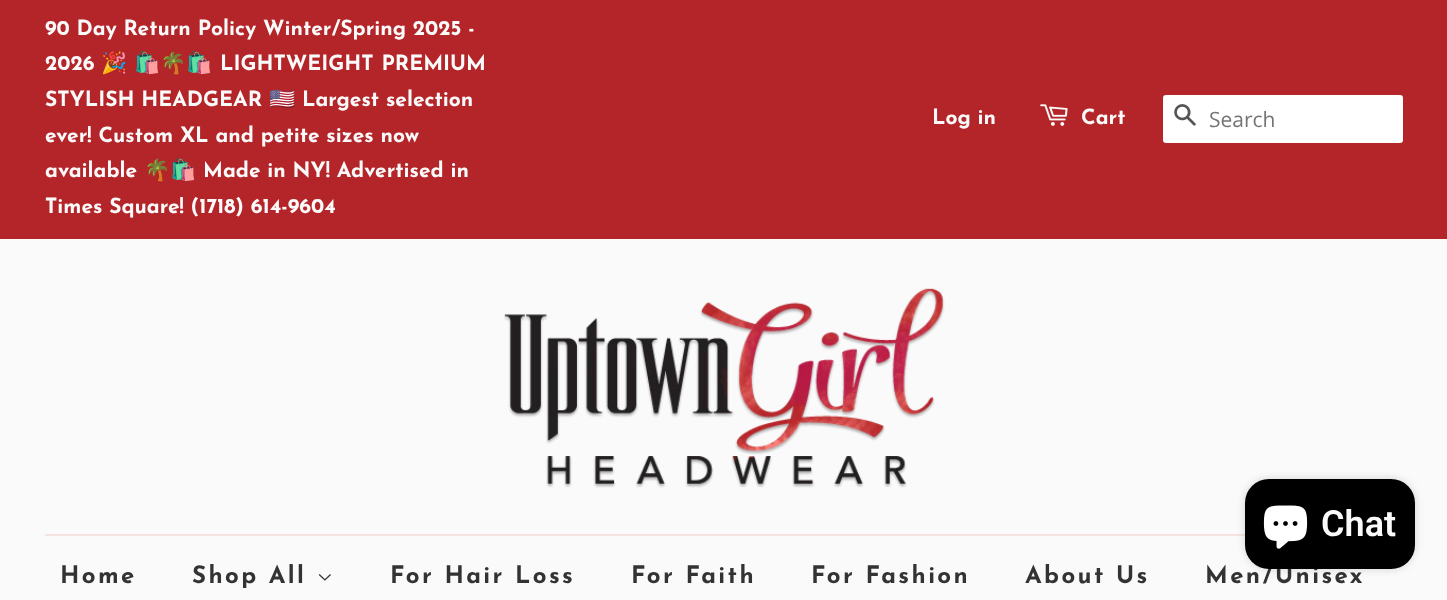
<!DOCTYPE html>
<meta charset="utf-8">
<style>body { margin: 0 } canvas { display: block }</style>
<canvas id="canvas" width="1447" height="600"></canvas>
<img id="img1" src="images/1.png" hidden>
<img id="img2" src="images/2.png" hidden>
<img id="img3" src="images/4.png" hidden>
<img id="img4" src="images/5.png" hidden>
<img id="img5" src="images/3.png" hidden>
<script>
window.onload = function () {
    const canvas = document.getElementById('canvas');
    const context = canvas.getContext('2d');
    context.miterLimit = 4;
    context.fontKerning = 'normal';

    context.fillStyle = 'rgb(250, 250, 250)';
    context.fillRect(0, 0, 1447, 600);
    context.fillStyle = 'rgb(180, 37, 41)';
    context.fillRect(0, 0, 1447, 239);
    context.drawImage(document.getElementById('img1'), 1040, 104, 28, 22);
    context.fillStyle = 'rgb(255, 255, 255)';
    context.beginPath();
    context.roundRect(1163, 95, 240, 48, 3);
    context.fill();
    context.drawImage(document.getElementById('img2'), 1174, 104, 22, 22);
    context.fillStyle = 'rgb(245, 227, 225)';
    context.fillRect(45, 534, 1200, 2);
    context.fillStyle = 'rgba(0, 0, 0, 0.15)';
    context.filter = 'blur(4px)';
    context.beginPath();
    context.roundRect(1245, 479, 170, 90, 24);
    context.fill();
    context.filter = 'none';
    context.drawImage(document.getElementById('img3'), 504, 288, 441, 200);
    context.drawImage(document.getElementById('img4'), 318, 574, 13, 7);
    context.font = '100 21px Josefin Sans';
    context.fillStyle = 'rgb(250, 250, 250)';
    context.fillText('90 Day Return Policy Winter/Spring 2025 -', 45, 35);
    context.fillText('2026', 45, 70);
    context.font = '21px Noto Color Emoji';
    context.fillText('🎉', 101, 70);
    context.fillText('🛍🌴🛍', 134, 70);
    context.wordSpacing = '1px';
    context.font = '100 21px Josefin Sans';
    context.fillText('LIGHTWEIGHT PREMIUM', 220, 70);
    context.wordSpacing = '0px';
    context.fillText('STYLISH HEADGEAR', 45, 106);
    context.font = '21px Noto Color Emoji';
    context.fillText('🇺🇸', 269, 106);
    context.font = '100 21px Josefin Sans';
    context.fillText('Largest selection', 302, 106);
    context.fillText('ever! Custom XL and petite sizes now', 45, 142);
    context.fillText('available', 45, 177);
    context.font = '21px Noto Color Emoji';
    context.fillText('🌴🛍', 144, 177);
    context.font = '100 21px Josefin Sans';
    context.fillText('Made in NY! Advertised in', 203, 177);
    context.fillText('Times Square! (1718) 614-9604', 45, 213);
    context.fillText('Log in', 932, 124);
    context.fillText('Cart', 1081, 124);
    context.font = '21px Open Sans';
    context.fillStyle = 'rgb(117, 117, 117)';
    context.fillText('Search', 1209, 127);
    context.letterSpacing = '2.4px';
    context.font = '100 24px Josefin Sans';
    context.fillStyle = 'rgb(51, 51, 51)';
    context.fillText('Home', 60, 583);
    context.fillText('Shop All', 192, 583);
    context.fillText('For Hair Loss', 390, 583);
    context.fillText('For Faith', 631, 583);
    context.fillText('For Fashion', 811, 583);
    context.fillText('About Us', 1025, 583);
    context.fillText('Men/Unisex', 1205, 583);
    context.fillStyle = 'rgb(0, 0, 0)';
    context.beginPath();
    context.roundRect(1245, 479, 170, 90, 24);
    context.fill();
    context.letterSpacing = '0px';
    context.font = '600 36px Roboto';
    context.fillStyle = 'rgb(250, 250, 250)';
    context.fillText('Chat', 1321, 536);
    context.drawImage(document.getElementById('img5'), 1263, 505, 45, 44);
};
</script>
